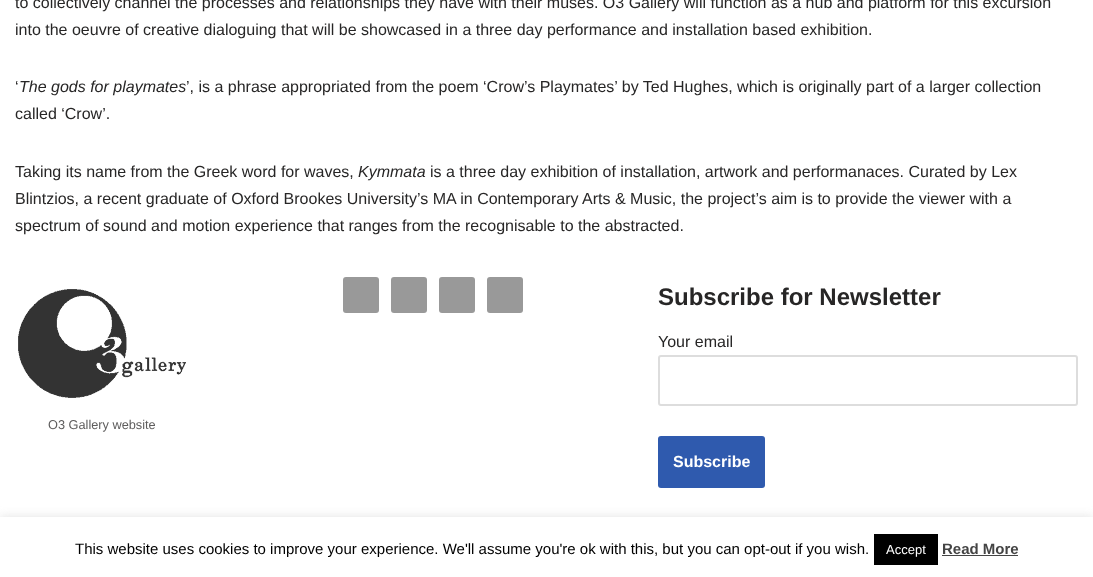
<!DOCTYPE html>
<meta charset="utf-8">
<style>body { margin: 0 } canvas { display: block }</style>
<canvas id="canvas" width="1093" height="577"></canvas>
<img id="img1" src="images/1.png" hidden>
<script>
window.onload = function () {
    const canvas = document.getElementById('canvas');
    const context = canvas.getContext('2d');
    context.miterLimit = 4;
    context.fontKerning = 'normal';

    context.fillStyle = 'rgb(255, 255, 255)';
    context.fillRect(0, 0, 1093, 577);
    context.drawImage(document.getElementById('img1'), 18, 289, 168, 109);
    context.fillStyle = 'rgb(153, 153, 153)';
    context.beginPath();
    context.roundRect(343, 277, 36, 36, 3);
    context.fill();
    context.beginPath();
    context.roundRect(391, 277, 36, 36, 3);
    context.fill();
    context.beginPath();
    context.roundRect(439, 277, 36, 36, 3);
    context.fill();
    context.beginPath();
    context.roundRect(487, 277, 36, 36, 3);
    context.fill();
    context.beginPath();
    context.roundRect(659, 356, 418, 49, 2);
    context.strokeStyle = 'rgb(221, 221, 221)';
    context.lineWidth = 2;
    context.stroke();
    context.fillStyle = 'rgb(47, 90, 174)';
    context.beginPath();
    context.roundRect(658, 436, 107, 52, 3);
    context.fill();
    context.fillStyle = 'rgba(172, 171, 171, 0.3)';
    context.filter = 'blur(5px)';
    context.beginPath();
    context.rect(0, 516, 1093, 60);
    context.fill();
    context.filter = 'none';
    context.fillStyle = 'rgb(255, 255, 255)';
    context.fillRect(0, 517, 1093, 60);
    context.fillStyle = 'rgb(0, 0, 0)';
    context.fillRect(874, 534, 64, 31);
    context.fillStyle = 'rgb(68, 68, 68)';
    context.fillRect(942, 555, 76, 1);
    context.font = '16px Liberation Sans';
    context.fillStyle = 'rgb(39, 38, 38)';
    context.fillText('to collectively channel the processes and relationships they have with their muses. O3 Gallery will function as a hub and platform for this excursion', 15, 8);
    context.fillText('into the oeuvre of creative dialoguing that will be showcased in a three day performance and installation based exhibition.', 15, 35);
    context.fillText('‘', 15, 92);
    context.font = 'italic 16px Liberation Sans';
    context.fillText('The gods for playmates', 19, 92);
    context.font = '16px Liberation Sans';
    context.fillText('’, is a phrase appropriated from the poem ‘Crow’s Playmates’ by Ted Hughes, which is originally part of a larger collection', 186, 92);
    context.fillText('called ‘Crow’.', 15, 119);
    context.fillText('Taking its name from the Greek word for waves,', 15, 177);
    context.font = 'italic 16px Liberation Sans';
    context.fillText('Kymmata', 358, 177);
    context.font = '16px Liberation Sans';
    context.fillText('is a three day exhibition of installation, artwork and performanaces. Curated by Lex', 430, 177);
    context.fillText('Blintzios, a recent graduate of Oxford Brookes University’s MA in Contemporary Arts & Music, the project’s aim is to provide the viewer with a', 15, 204);
    context.fillText('spectrum of sound and motion experience that ranges from the recognisable to the abstracted.', 15, 231);
    context.font = '12.75px Liberation Sans';
    context.fillStyle = 'rgb(93, 92, 92)';
    context.fillText('O3 Gallery website', 48, 429);
    context.font = 'bold 24px Liberation Sans';
    context.fillStyle = 'rgb(39, 38, 38)';
    context.fillText('Subscribe for Newsletter', 658, 305);
    context.font = '16px Liberation Sans';
    context.fillText('Your email', 658, 347);
    context.font = 'bold 16px Liberation Sans';
    context.fillStyle = 'rgb(255, 255, 255)';
    context.fillText('Subscribe', 673, 467);
    context.font = '15px Liberation Sans';
    context.fillStyle = 'rgb(0, 0, 0)';
    context.fillText('This website uses cookies to improve your experience. We\'ll assume you\'re ok with this, but you can opt-out if you wish.', 75, 554);
    context.font = '13px Liberation Sans';
    context.fillStyle = 'rgb(255, 255, 255)';
    context.fillText('Accept', 886, 554);
    context.font = 'bold 15px Liberation Sans';
    context.fillStyle = 'rgb(68, 68, 68)';
    context.fillText('Read More', 942, 554);
};
</script>
